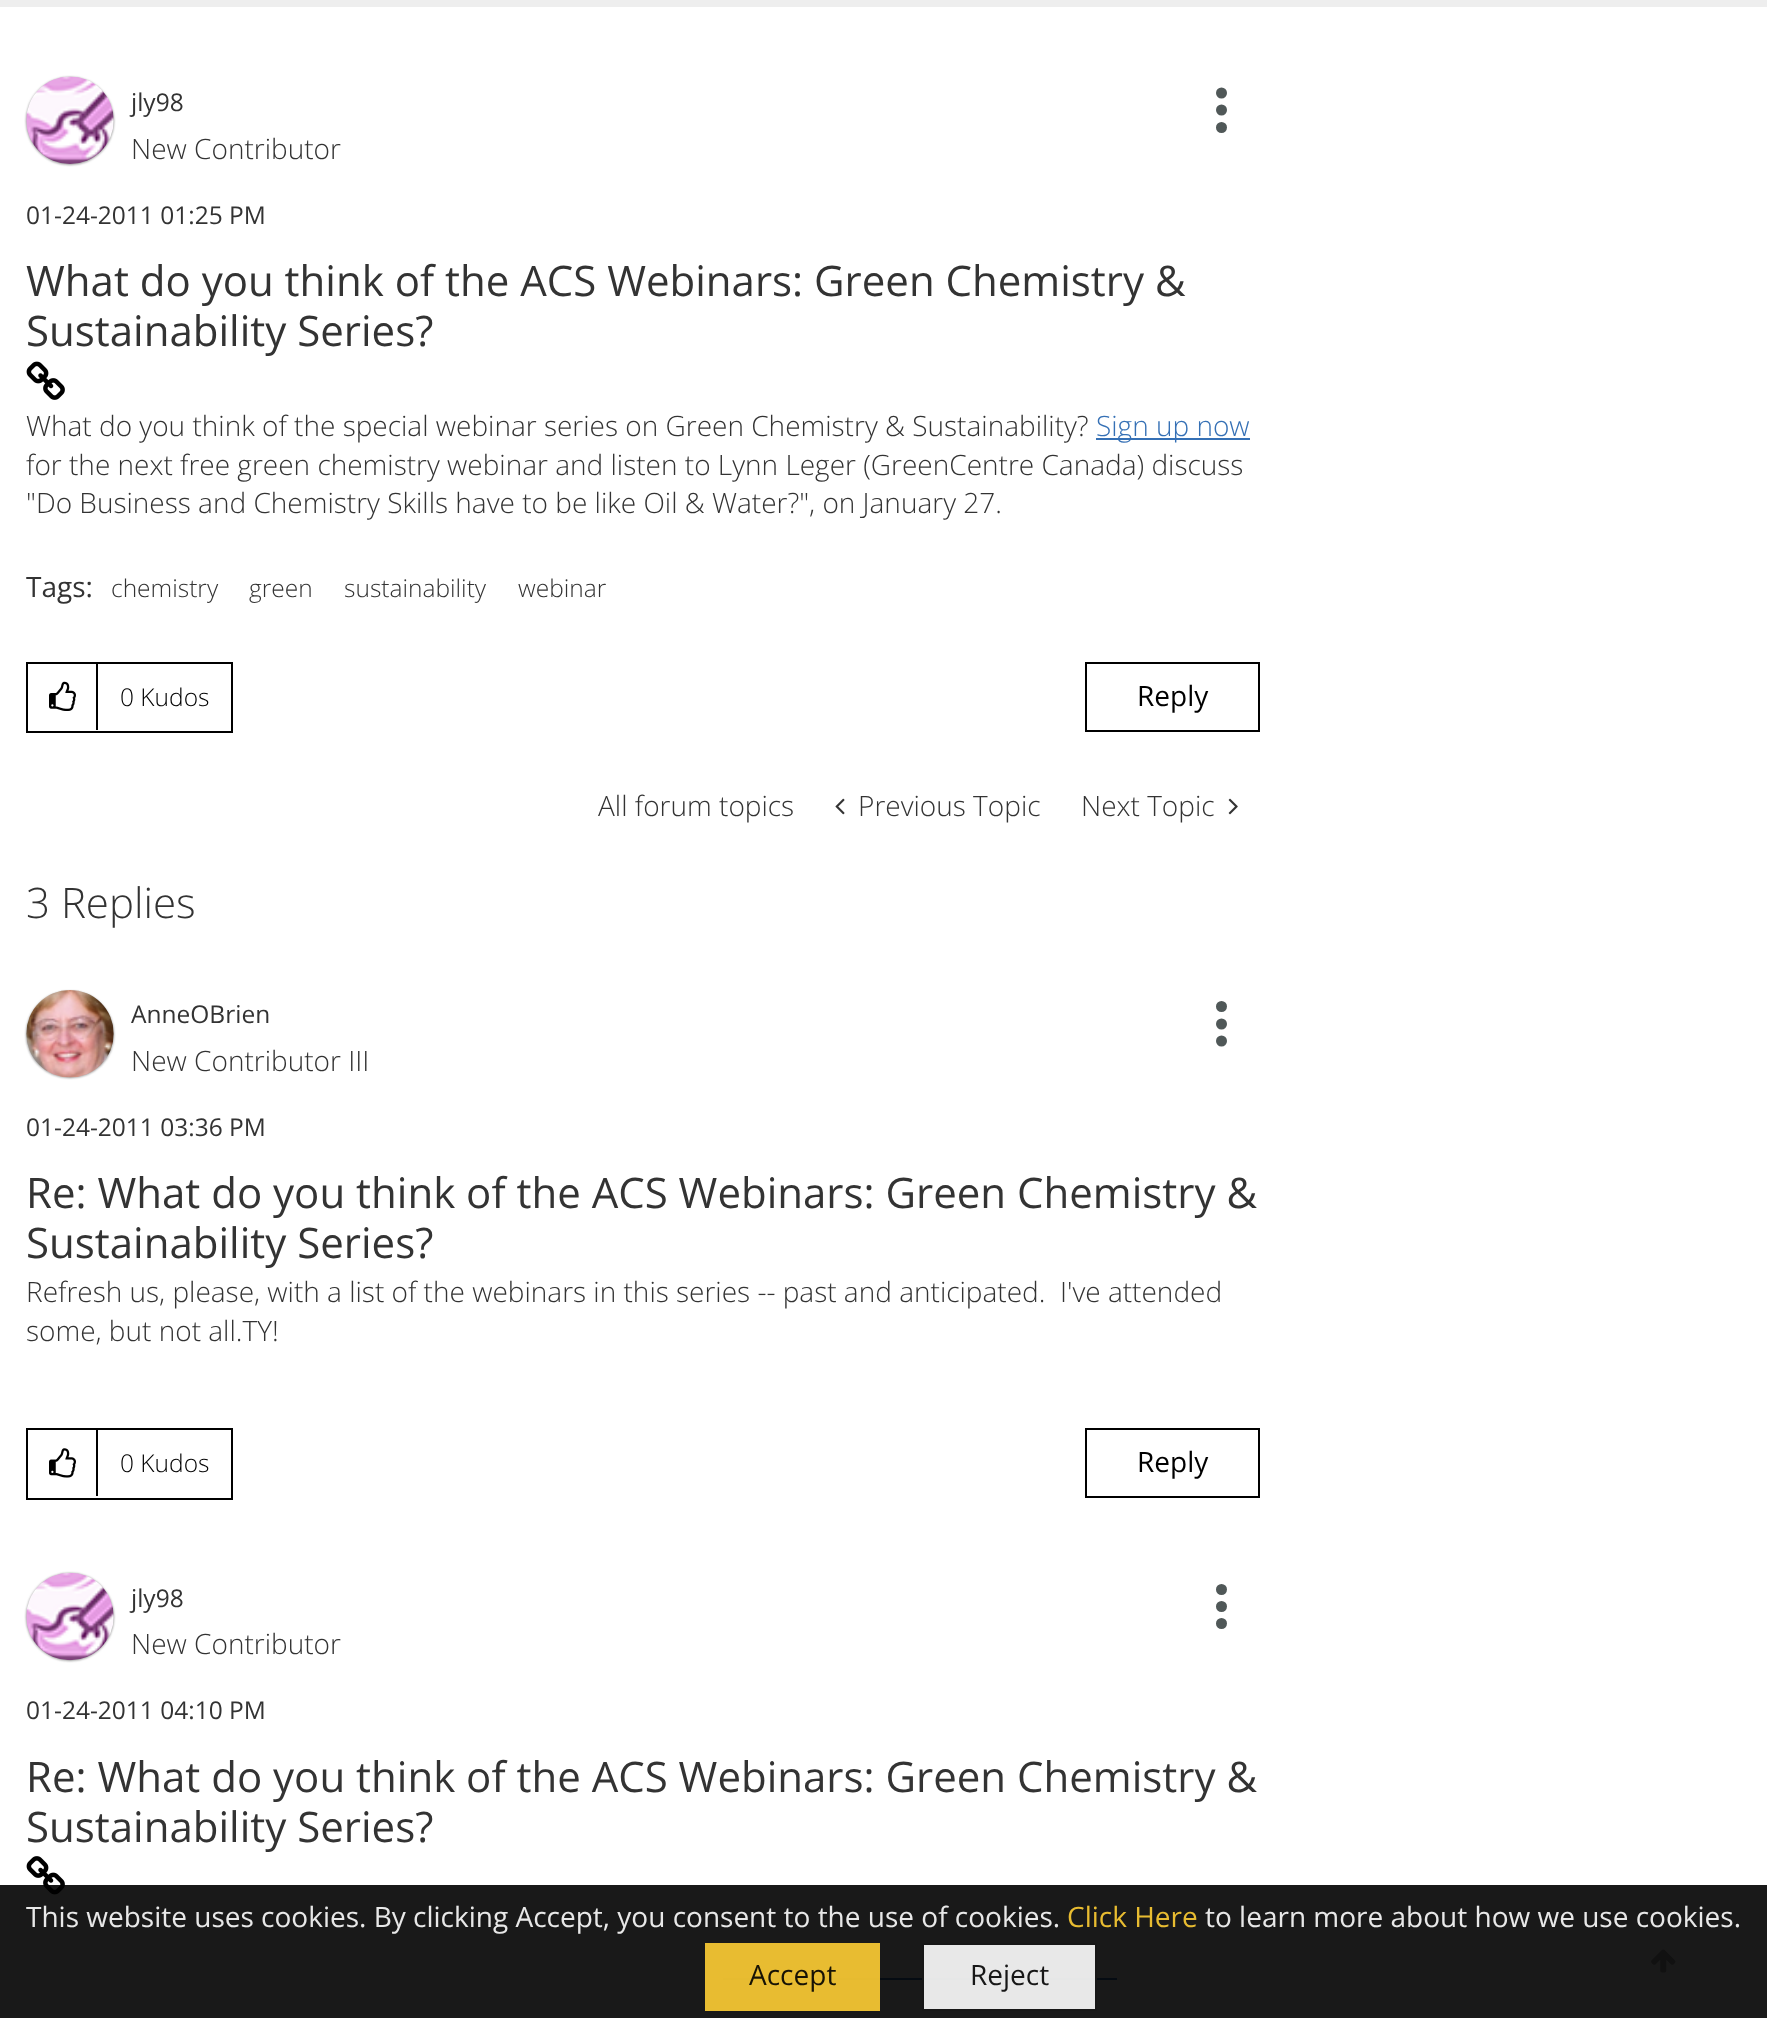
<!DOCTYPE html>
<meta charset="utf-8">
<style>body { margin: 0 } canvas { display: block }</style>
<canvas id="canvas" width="1767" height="2018"></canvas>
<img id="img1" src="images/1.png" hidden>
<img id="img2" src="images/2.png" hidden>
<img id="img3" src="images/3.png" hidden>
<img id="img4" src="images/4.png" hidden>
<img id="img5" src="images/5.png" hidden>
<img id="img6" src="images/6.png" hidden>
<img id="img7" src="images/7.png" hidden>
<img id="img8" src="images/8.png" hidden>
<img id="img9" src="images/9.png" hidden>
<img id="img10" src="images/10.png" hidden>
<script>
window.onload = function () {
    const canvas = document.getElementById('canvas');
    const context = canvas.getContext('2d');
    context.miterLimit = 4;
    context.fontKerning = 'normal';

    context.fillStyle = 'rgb(255, 255, 255)';
    context.fillRect(0, 0, 1767, 2018);
    context.fillStyle = 'rgb(238, 238, 238)';
    context.fillRect(0, 0, 1767, 7);
    context.fillStyle = 'rgb(153, 153, 153)';
    context.filter = 'blur(1px)';
    context.beginPath();
    context.roundRect(26, 77, 88, 88, 44);
    context.fill();
    context.filter = 'none';
    context.drawImage(document.getElementById('img1'), 26, 76, 88, 88);
    context.fillStyle = 'rgb(80, 88, 88)';
    context.beginPath();
    context.arc(1221.5, 93, 5.5, 0, 2 * Math.PI);
    context.fill();
    context.beginPath();
    context.arc(1221.5, 110, 5.5, 0, 2 * Math.PI);
    context.fill();
    context.beginPath();
    context.arc(1221.5, 127.5, 5.5, 0, 2 * Math.PI);
    context.fill();
    context.drawImage(document.getElementById('img2'), 26, 361, 39, 39);
    context.fillStyle = 'rgb(53, 112, 181)';
    context.fillRect(1096, 438, 154, 2);
    context.strokeStyle = 'rgb(0, 0, 0)';
    context.lineWidth = 2;
    context.strokeRect(27, 663, 205, 69);
    context.drawImage(document.getElementById('img3'), 49, 681, 27, 30);
    context.fillStyle = 'rgb(0, 0, 0)';
    context.fillRect(96, 663, 2, 67);
    context.strokeRect(1086, 663, 173, 68);
    context.drawImage(document.getElementById('img4'), 835, 798, 10, 17);
    context.drawImage(document.getElementById('img5'), 1228, 798, 10, 17);
    context.fillStyle = 'rgb(153, 153, 153)';
    context.filter = 'blur(1px)';
    context.beginPath();
    context.roundRect(26, 991, 88, 87, 43.5);
    context.fill();
    context.filter = 'none';
    context.drawImage(document.getElementById('img6'), 26, 990, 88, 88);
    context.fillStyle = 'rgb(80, 88, 88)';
    context.beginPath();
    context.arc(1221.5, 1006.5, 5.5, 0, 2 * Math.PI);
    context.fill();
    context.beginPath();
    context.arc(1221.5, 1024, 5.5, 0, 2 * Math.PI);
    context.fill();
    context.beginPath();
    context.arc(1221.5, 1041, 5.5, 0, 2 * Math.PI);
    context.fill();
    context.strokeRect(27, 1429, 205, 70);
    context.drawImage(document.getElementById('img7'), 49, 1448, 27, 30);
    context.fillStyle = 'rgb(0, 0, 0)';
    context.fillRect(96, 1430, 2, 66);
    context.strokeRect(1086, 1429, 173, 68);
    context.fillStyle = 'rgb(153, 153, 153)';
    context.filter = 'blur(1px)';
    context.beginPath();
    context.roundRect(26, 1573, 88, 88, 44);
    context.fill();
    context.filter = 'none';
    context.drawImage(document.getElementById('img8'), 26, 1573, 88, 88);
    context.fillStyle = 'rgb(80, 88, 88)';
    context.beginPath();
    context.arc(1221.5, 1589.5, 5.5, 0, 2 * Math.PI);
    context.fill();
    context.beginPath();
    context.arc(1221.5, 1606.5, 5.5, 0, 2 * Math.PI);
    context.fill();
    context.beginPath();
    context.arc(1221.5, 1623.5, 5.5, 0, 2 * Math.PI);
    context.fill();
    context.drawImage(document.getElementById('img9'), 26, 1856, 39, 39);
    context.fillStyle = 'rgb(53, 112, 181)';
    context.fillRect(723, 1978, 394, 2);
    context.drawImage(document.getElementById('img10'), 1651, 1949, 25, 24);
    context.fillStyle = 'rgba(0, 0, 0, 0.9)';
    context.fillRect(0, 1885, 1767, 133);
    context.fillStyle = 'rgba(255, 206, 52, 0.9)';
    context.fillRect(705, 1943, 175, 68);
    context.fillStyle = 'rgba(255, 255, 255, 0.9)';
    context.beginPath();
    context.rect(923, 1944, 173, 66);
    context.fill();
    context.strokeStyle = 'rgb(23, 23, 23)';
    context.stroke();
    context.font = '24.5px Open Sans';
    context.fillStyle = 'rgb(51, 51, 51)';
    context.fillText('jly98', 131, 111);
    context.font = '300 28px Open Sans';
    context.fillText('New Contributor', 131, 159);
    context.font = '24.5px Open Sans';
    context.fillText('01-24-2011 01:25 PM', 26, 224);
    context.font = '42px Open Sans';
    context.fillText('What do you think of the ACS Webinars: Green Chemistry &', 26, 296);
    context.fillText('Sustainability Series?', 26, 346);
    context.font = '300 28px Open Sans';
    context.fillText('What do you think of the special webinar series on Green Chemistry & Sustainability?', 26, 436);
    context.fillStyle = 'rgb(53, 112, 181)';
    context.fillText('Sign up now', 1096, 436);
    context.fillStyle = 'rgb(51, 51, 51)';
    context.fillText('for the next free green chemistry webinar and listen to Lynn Leger (GreenCentre Canada) discuss', 26, 475);
    context.fillText('"Do Business and Chemistry Skills have to be like Oil & Water?", on January 27.', 26, 513);
    context.font = '28px Open Sans';
    context.fillText('Tags:', 26, 597);
    context.font = '300 24.5px Open Sans';
    context.fillText('chemistry', 111, 597);
    context.fillText('green', 249, 597);
    context.fillText('sustainability', 344, 597);
    context.fillText('webinar', 518, 597);
    context.fillStyle = 'rgb(0, 0, 0)';
    context.fillText('0 Kudos', 120, 706);
    context.font = '28px Open Sans';
    context.fillText('Reply', 1137, 706);
    context.font = '300 28px Open Sans';
    context.fillStyle = 'rgb(51, 51, 51)';
    context.fillText('All forum topics', 598, 816);
    context.fillText('Previous Topic', 858, 816);
    context.fillText('Next Topic', 1081, 816);
    context.font = '300 42px Open Sans';
    context.fillText('3 Replies', 26, 918);
    context.font = '24.5px Open Sans';
    context.fillText('AnneOBrien', 131, 1023);
    context.font = '300 28px Open Sans';
    context.fillText('New Contributor III', 131, 1071);
    context.font = '24.5px Open Sans';
    context.fillText('01-24-2011 03:36 PM', 26, 1136);
    context.font = '42px Open Sans';
    context.fillText('Re: What do you think of the ACS Webinars: Green Chemistry &', 26, 1208);
    context.fillText('Sustainability Series?', 26, 1258);
    context.font = '300 28px Open Sans';
    context.fillText('Refresh us, please, with a list of the webinars in this series -- past and anticipated.  I\'ve attended', 26, 1302);
    context.fillText('some, but not all.TY!', 26, 1341);
    context.font = '300 24.5px Open Sans';
    context.fillStyle = 'rgb(0, 0, 0)';
    context.fillText('0 Kudos', 120, 1472);
    context.font = '28px Open Sans';
    context.fillText('Reply', 1137, 1472);
    context.font = '24.5px Open Sans';
    context.fillStyle = 'rgb(51, 51, 51)';
    context.fillText('jly98', 131, 1607);
    context.font = '300 28px Open Sans';
    context.fillText('New Contributor', 131, 1654);
    context.font = '24.5px Open Sans';
    context.fillText('01-24-2011 04:10 PM', 26, 1719);
    context.font = '42px Open Sans';
    context.fillText('Re: What do you think of the ACS Webinars: Green Chemistry &', 26, 1792);
    context.fillText('Sustainability Series?', 26, 1842);
    context.font = '28px Open Sans';
    context.fillStyle = 'rgb(232, 232, 232)';
    context.fillText('This website uses cookies. By clicking Accept, you consent to the use of cookies.', 26, 1927);
    context.fillStyle = 'rgb(232, 188, 49)';
    context.fillText('Click Here', 1067, 1927);
    context.fillStyle = 'rgb(232, 232, 232)';
    context.fillText('to learn more about how we use cookies.', 1205, 1927);
    context.fillStyle = 'rgb(23, 19, 5)';
    context.fillText('Accept', 749, 1985);
    context.fillStyle = 'rgb(23, 23, 23)';
    context.fillText('Reject', 970, 1985);
};
</script>
